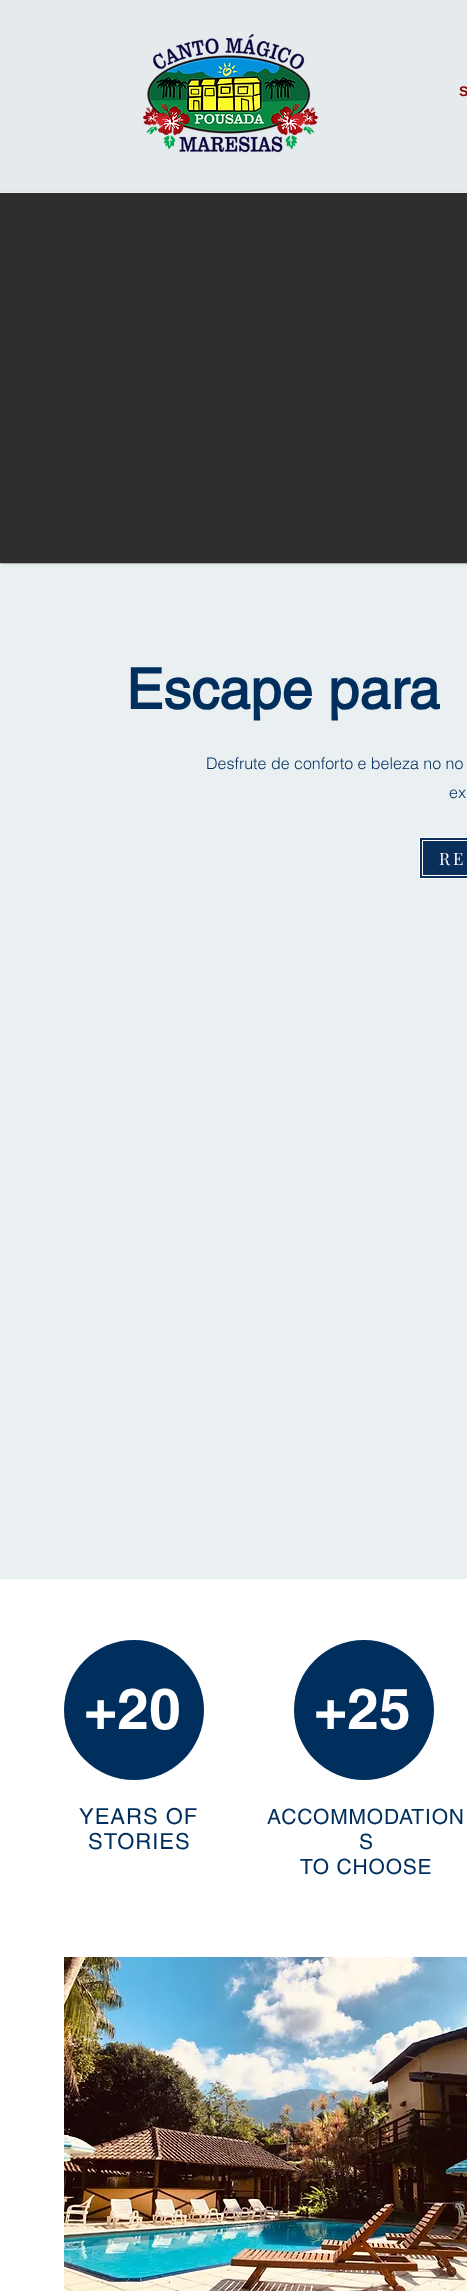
<!DOCTYPE html>
<meta charset="utf-8">
<style>body { margin: 0 } canvas { display: block }</style>
<canvas id="canvas" width="467" height="2291"></canvas>
<img id="img1" src="images/1.png" hidden>
<img id="img2" src="images/2.png" hidden>
<script>
window.onload = function () {
    const canvas = document.getElementById('canvas');
    const context = canvas.getContext('2d');
    context.miterLimit = 4;
    context.fontKerning = 'normal';

    context.fillStyle = 'rgb(255, 255, 255)';
    context.fillRect(0, 0, 467, 2291);
    context.fillStyle = 'rgb(229, 235, 237)';
    context.fillRect(0, 0, 467, 192);
    context.drawImage(document.getElementById('img1'), 142, 34, 176, 119);
    context.fillStyle = 'rgba(0, 0, 0, 0.5)';
    context.filter = 'blur(1.5px)';
    context.beginPath();
    context.rect(0, 194, 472, 370);
    context.fill();
    context.filter = 'none';
    context.fillStyle = 'rgb(47, 46, 46)';
    context.fillRect(0, 193, 467, 370);
    context.fillStyle = 'rgba(229, 235, 237, 0.8)';
    context.fillRect(0, 564, 467, 1015);
    context.fillStyle = 'rgb(11, 47, 91)';
    context.beginPath();
    context.rect(419.5, 837.5, 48, 41);
    context.fill();
    context.strokeStyle = 'rgb(255, 255, 255)';
    context.stroke();
    context.strokeRect(422.5, 840.5, 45, 35);
    context.fillStyle = 'rgb(0, 46, 93)';
    context.beginPath();
    context.arc(134, 1710, 70, 0, 2 * Math.PI);
    context.fill();
    context.beginPath();
    context.arc(364, 1710, 70, 0, 2 * Math.PI);
    context.fill();
    context.drawImage(document.getElementById('img2'), 64, 1957, 403, 334);
    context.font = 'bold 14px Liberation Sans';
    context.fillStyle = 'rgb(139, 0, 0)';
    context.fillText('S', 459, 96);
    context.font = 'bold 56px helvetica';
    context.fillStyle = 'rgb(0, 46, 93)';
    context.fillText('Escape para', 126, 709);
    context.font = '300 16px helvetica';
    context.fillText('Desfrute de conforto e beleza no no', 206, 769);
    context.fillText('ex', 449, 798);
    context.letterSpacing = '3px';
    context.font = '17px Playfair Display';
    context.fillStyle = 'rgb(255, 255, 255)';
    context.fillText('RE', 439, 865);
    context.letterSpacing = '0px';
    context.font = 'bold 57px "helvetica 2"';
    context.fillText('+20', 84, 1729);
    context.fillText('+25', 314, 1729);
    context.letterSpacing = '1px';
    context.font = '22px helvetica';
    context.fillStyle = 'rgb(0, 46, 93)';
    context.fillText('YEARS OF', 79, 1824);
    context.fillText('STORIES', 88, 1849);
    context.letterSpacing = '0.8px';
    context.font = '21px helvetica';
    context.fillText('ACCOMMODATION', 267, 1824);
    context.fillText('S', 359, 1849);
    context.fillText('TO CHOOSE', 300, 1874);
};
</script>
